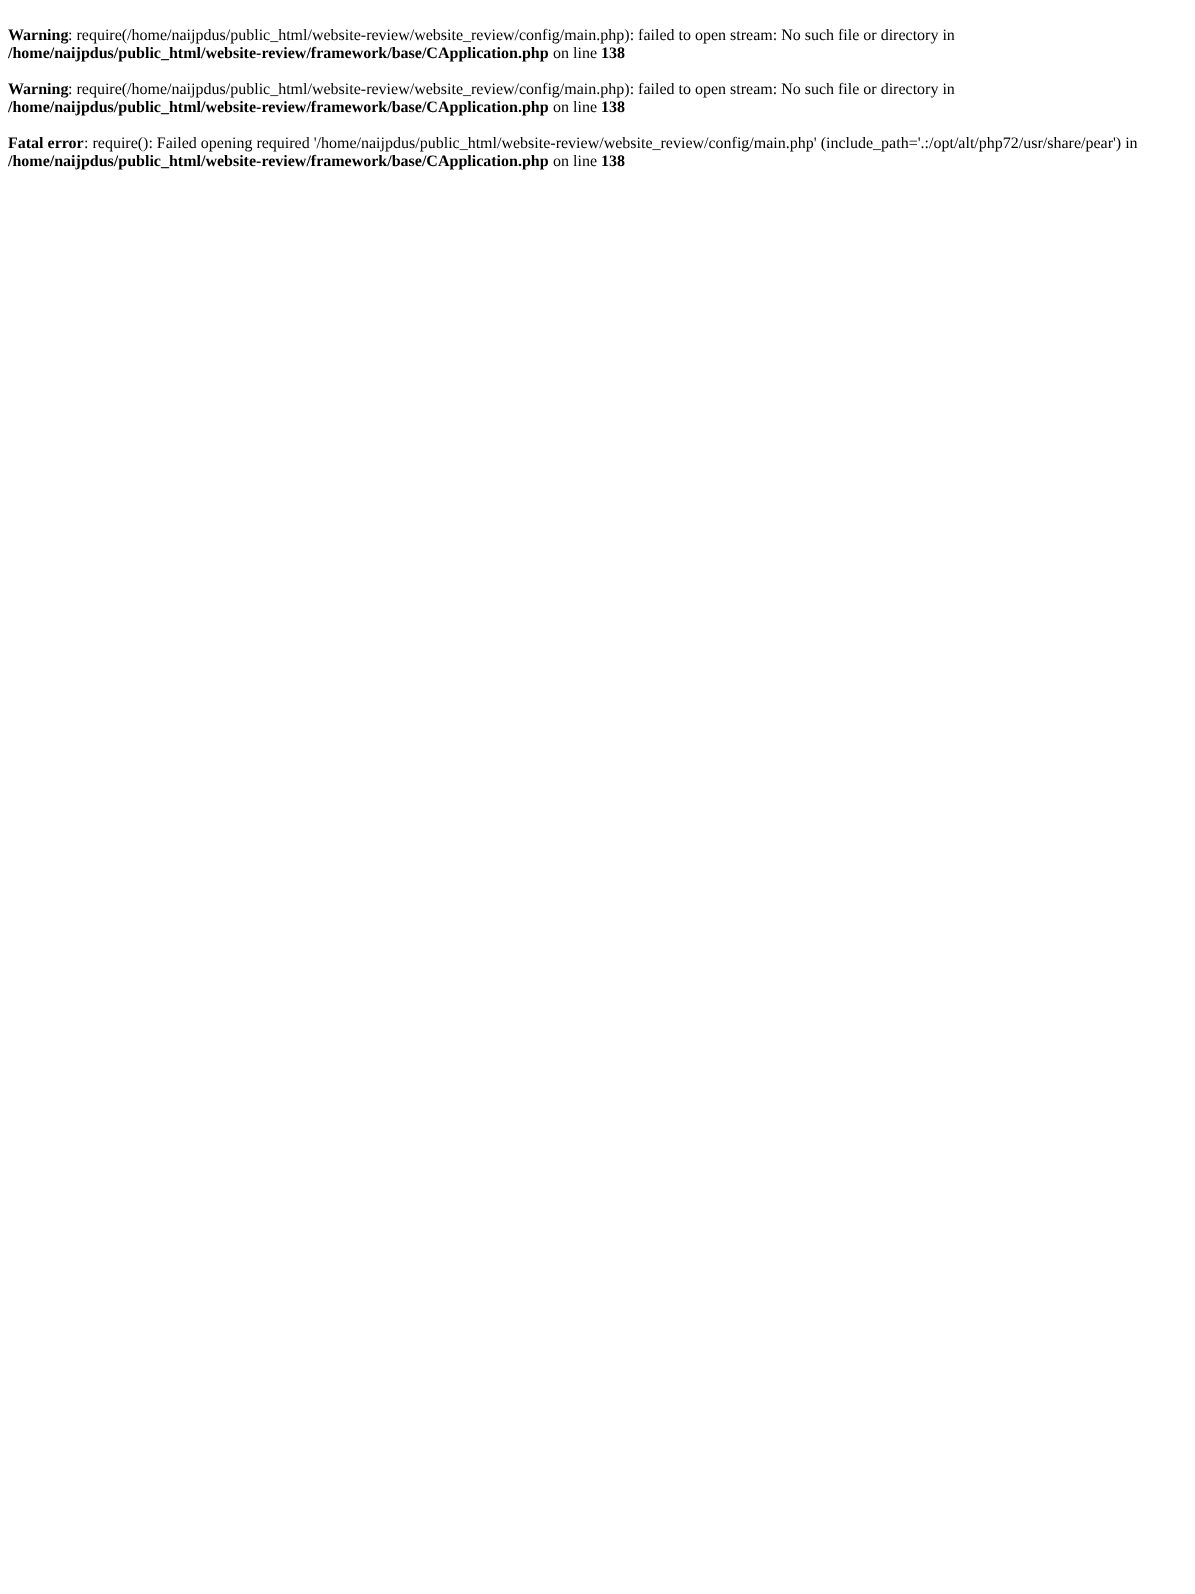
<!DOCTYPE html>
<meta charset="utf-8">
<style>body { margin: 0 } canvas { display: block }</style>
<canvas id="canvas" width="1195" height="1594"></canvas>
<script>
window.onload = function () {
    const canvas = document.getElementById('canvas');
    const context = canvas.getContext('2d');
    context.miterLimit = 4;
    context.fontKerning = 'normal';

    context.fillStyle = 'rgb(255, 255, 255)';
    context.fillRect(0, 0, 1195, 1594);
    context.font = 'bold 16px Liberation Serif';
    context.fillStyle = 'rgb(0, 0, 0)';
    context.fillText('Warning', 8, 40);
    context.font = '16px Liberation Serif';
    context.fillText(': require(/home/naijpdus/public_html/website-review/website_review/config/main.php): failed to open stream: No such file or directory in', 68, 40);
    context.font = 'bold 16px Liberation Serif';
    context.fillText('/home/naijpdus/public_html/website-review/framework/base/CApplication.php', 8, 58);
    context.font = '16px Liberation Serif';
    context.fillText('on line', 553, 58);
    context.font = 'bold 16px Liberation Serif';
    context.fillText('138', 601, 58);
    context.fillText('Warning', 8, 94);
    context.font = '16px Liberation Serif';
    context.fillText(': require(/home/naijpdus/public_html/website-review/website_review/config/main.php): failed to open stream: No such file or directory in', 68, 94);
    context.font = 'bold 16px Liberation Serif';
    context.fillText('/home/naijpdus/public_html/website-review/framework/base/CApplication.php', 8, 112);
    context.font = '16px Liberation Serif';
    context.fillText('on line', 553, 112);
    context.font = 'bold 16px Liberation Serif';
    context.fillText('138', 601, 112);
    context.fillText('Fatal error', 8, 148);
    context.font = '16px Liberation Serif';
    context.fillText(': require(): Failed opening required \'/home/naijpdus/public_html/website-review/website_review/config/main.php\' (include_path=\'.:/opt/alt/php72/usr/share/pear\') in', 84, 148);
    context.font = 'bold 16px Liberation Serif';
    context.fillText('/home/naijpdus/public_html/website-review/framework/base/CApplication.php', 8, 166);
    context.font = '16px Liberation Serif';
    context.fillText('on line', 553, 166);
    context.font = 'bold 16px Liberation Serif';
    context.fillText('138', 601, 166);
};
</script>
